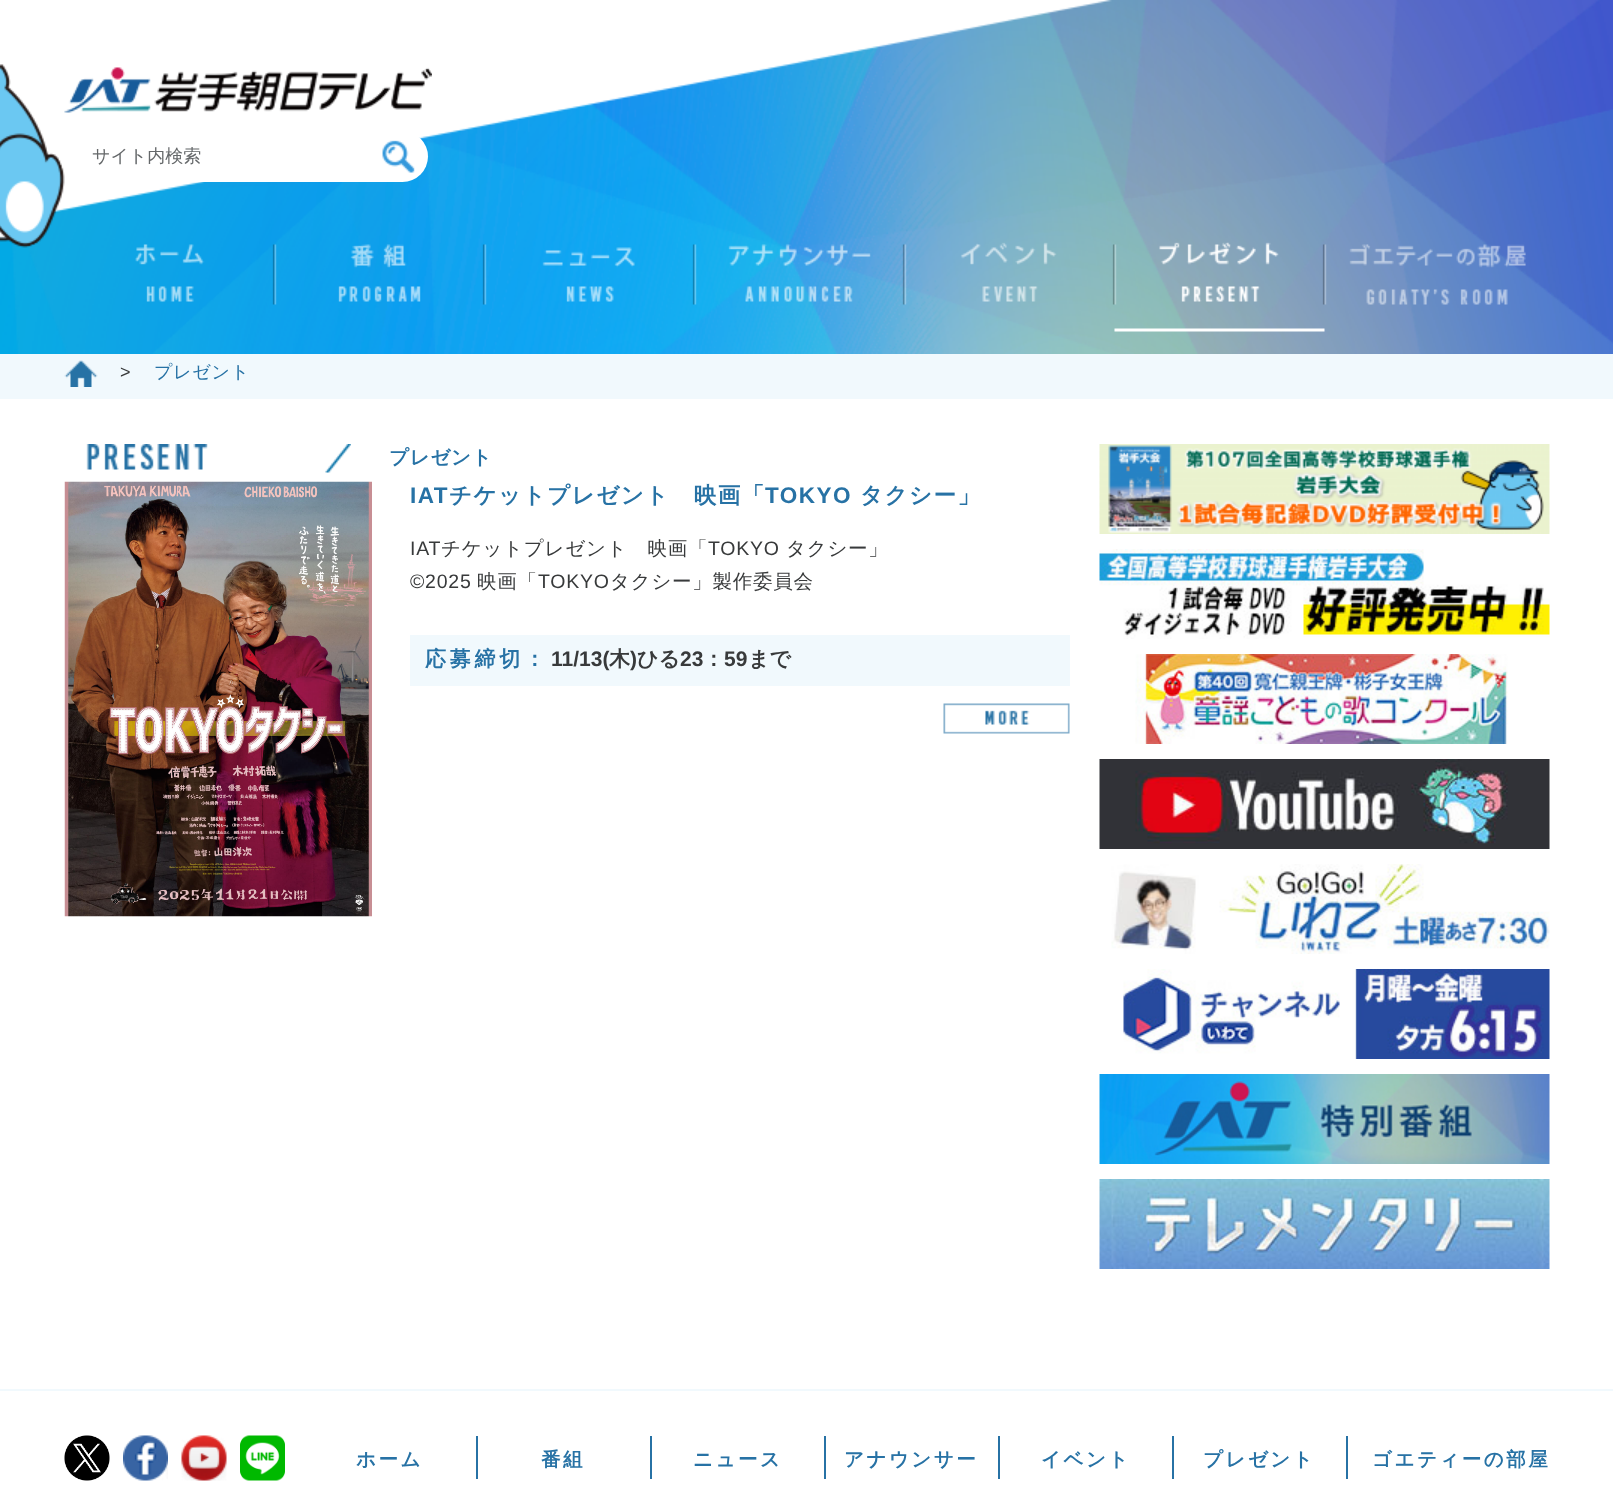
<!DOCTYPE html>
<meta charset="utf-8">
<style>body { margin: 0 } canvas { display: block }</style>
<canvas id="canvas" width="1613" height="1492"></canvas>
<img id="img1" src="images/1.png" hidden>
<img id="img2" src="images/3.png" hidden>
<img id="img3" src="images/2.png" hidden>
<img id="img4" src="images/4.png" hidden>
<img id="img5" src="images/5.png" hidden>
<img id="img6" src="images/6.png" hidden>
<img id="img7" src="images/7.png" hidden>
<img id="img8" src="images/8.png" hidden>
<img id="img9" src="images/9.png" hidden>
<img id="img10" src="images/10.png" hidden>
<img id="img11" src="images/11.png" hidden>
<img id="img12" src="images/12.png" hidden>
<img id="img13" src="images/13.png" hidden>
<img id="img14" src="images/14.png" hidden>
<img id="img15" src="images/15.png" hidden>
<img id="img16" src="images/16.png" hidden>
<img id="img17" src="images/17.png" hidden>
<img id="img18" src="images/18.png" hidden>
<img id="img19" src="images/19.png" hidden>
<img id="img20" src="images/20.png" hidden>
<img id="img21" src="images/21.png" hidden>
<img id="img22" src="images/22.png" hidden>
<img id="img23" src="images/23.png" hidden>
<img id="img24" src="images/24.png" hidden>
<img id="img25" src="images/25.png" hidden>
<img id="img26" src="images/26.png" hidden>
<img id="img27" src="images/27.png" hidden>
<script>
window.onload = function () {
    const canvas = document.getElementById('canvas');
    const context = canvas.getContext('2d');
    context.miterLimit = 4;
    context.fontKerning = 'normal';

    context.fillStyle = 'rgb(255, 255, 255)';
    context.fillRect(0, 0, 1613, 1492);
    context.drawImage(document.getElementById('img1'), 0, 0, 1613, 354);
    context.drawImage(document.getElementById('img2'), 64, 67, 368, 46);
    context.drawImage(document.getElementById('img3'), 0, 64, 65, 184);
    context.beginPath();
    context.roundRect(65, 131, 363, 51, 25.5);
    context.fill();
    context.drawImage(document.getElementById('img4'), 382, 140, 33, 33);
    context.drawImage(document.getElementById('img5'), 135, 244, 140, 61);
    context.drawImage(document.getElementById('img6'), 274, 244, 211, 61);
    context.drawImage(document.getElementById('img7'), 484, 244, 211, 61);
    context.drawImage(document.getElementById('img8'), 694, 244, 211, 61);
    context.drawImage(document.getElementById('img9'), 904, 242, 211, 63);
    context.drawImage(document.getElementById('img10'), 1114, 242, 211, 90);
    context.drawImage(document.getElementById('img11'), 1324, 244, 202, 61);
    context.fillStyle = 'rgb(241, 249, 253)';
    context.fillRect(0, 354, 1613, 45);
    context.drawImage(document.getElementById('img12'), 64, 360, 34, 27);
    context.drawImage(document.getElementById('img13'), 86, 444, 265, 29);
    context.drawImage(document.getElementById('img14'), 64, 481, 308, 436);
    context.fillRect(410, 635, 660, 51);
    context.drawImage(document.getElementById('img15'), 943, 703, 127, 31);
    context.drawImage(document.getElementById('img16'), 1099, 444, 451, 90);
    context.drawImage(document.getElementById('img17'), 1099, 549, 451, 90);
    context.drawImage(document.getElementById('img18'), 1135, 654, 373, 90);
    context.drawImage(document.getElementById('img19'), 1099, 759, 451, 90);
    context.drawImage(document.getElementById('img20'), 1111, 864, 439, 90);
    context.drawImage(document.getElementById('img21'), 1123, 969, 427, 90);
    context.drawImage(document.getElementById('img22'), 1099, 1074, 451, 90);
    context.drawImage(document.getElementById('img23'), 1099, 1179, 451, 90);
    context.fillRect(0, 1389, 1613, 2);
    context.drawImage(document.getElementById('img24'), 64, 1435, 46, 46);
    context.drawImage(document.getElementById('img25'), 123, 1435, 45, 46);
    context.drawImage(document.getElementById('img26'), 181, 1435, 46, 46);
    context.drawImage(document.getElementById('img27'), 240, 1435, 45, 46);
    context.fillStyle = 'rgb(39, 114, 165)';
    context.fillRect(476, 1436, 2, 43);
    context.fillRect(650, 1436, 2, 43);
    context.fillRect(824, 1436, 2, 43);
    context.fillRect(998, 1436, 2, 43);
    context.fillRect(1172, 1436, 2, 43);
    context.fillRect(1346, 1436, 2, 43);
    context.font = '500 18px WenQuanYi Zen Hei';
    context.fillStyle = 'rgb(101, 104, 106)';
    context.fillText('サイト内検索', 92, 162);
    context.letterSpacing = '0.75px';
    context.font = '18px Liberation Sans';
    context.fillStyle = 'rgb(56, 58, 59)';
    context.fillText('>', 120, 378);
    context.font = '500 18px WenQuanYi Zen Hei';
    context.fillStyle = 'rgb(39, 114, 165)';
    context.fillText('プレゼント', 154, 378);
    context.font = 'bold 19.5px WenQuanYi Zen Hei';
    context.fillText('プレゼント', 389, 464);
    context.letterSpacing = '1.5px';
    context.font = 'bold 22.5px Liberation Sans';
    context.fillText('IAT', 410, 503);
    context.font = 'bold 22.5px WenQuanYi Zen Hei';
    context.fillText('チケットプレゼント　映画「', 449, 503);
    context.font = 'bold 22.5px Liberation Sans';
    context.fillText('TOKYO', 765, 503);
    context.font = 'bold 22.5px WenQuanYi Zen Hei';
    context.fillText('タクシー」', 860, 503);
    context.letterSpacing = '0.75px';
    context.font = '19.5px Liberation Sans';
    context.fillStyle = 'rgb(56, 58, 59)';
    context.fillText('IAT', 410, 555);
    context.font = '500 19.5px WenQuanYi Zen Hei';
    context.fillText('チケットプレゼント　映画「', 441, 555);
    context.font = '19.5px Liberation Sans';
    context.fillText('TOKYO', 708, 555);
    context.font = '500 19.5px WenQuanYi Zen Hei';
    context.fillText('タクシー」', 786, 555);
    context.font = '19.5px Liberation Sans';
    context.fillText('©2025', 410, 588);
    context.font = '500 19.5px WenQuanYi Zen Hei';
    context.fillText('映画「', 477, 588);
    context.font = '19.5px Liberation Sans';
    context.fillText('TOKYO', 538, 588);
    context.font = '500 19.5px WenQuanYi Zen Hei';
    context.fillText('タクシー」製作委員会', 610, 588);
    context.letterSpacing = '3.75px';
    context.font = 'bold 21px WenQuanYi Zen Hei';
    context.fillStyle = 'rgb(39, 114, 165)';
    context.fillText('応募締切：', 425, 666);
    context.letterSpacing = '0px';
    context.font = 'bold 21px Liberation Sans';
    context.fillStyle = 'rgb(56, 58, 59)';
    context.fillText('11/13(', 551, 666);
    context.font = 'bold 21px WenQuanYi Zen Hei';
    context.fillText('木', 609, 666);
    context.font = 'bold 21px Liberation Sans';
    context.fillText(')', 630, 666);
    context.font = 'bold 21px WenQuanYi Zen Hei';
    context.fillText('ひる', 637, 666);
    context.font = 'bold 21px Liberation Sans';
    context.fillText('23', 680, 666);
    context.font = 'bold 21px WenQuanYi Zen Hei';
    context.fillText('：', 703, 666);
    context.font = 'bold 21px Liberation Sans';
    context.fillText('59', 724, 666);
    context.font = 'bold 21px WenQuanYi Zen Hei';
    context.fillText('まで', 748, 666);
    context.letterSpacing = '2.5px';
    context.font = 'bold 19.5px WenQuanYi Zen Hei';
    context.fillStyle = 'rgb(39, 114, 165)';
    context.fillText('ホーム', 356, 1466);
    context.fillText('番組', 541, 1466);
    context.fillText('ニュース', 693, 1466);
    context.fillText('アナウンサー', 844, 1466);
    context.fillText('イベント', 1041, 1466);
    context.fillText('プレゼント', 1203, 1466);
    context.fillText('ゴエティーの部屋', 1372, 1466);
};
</script>
